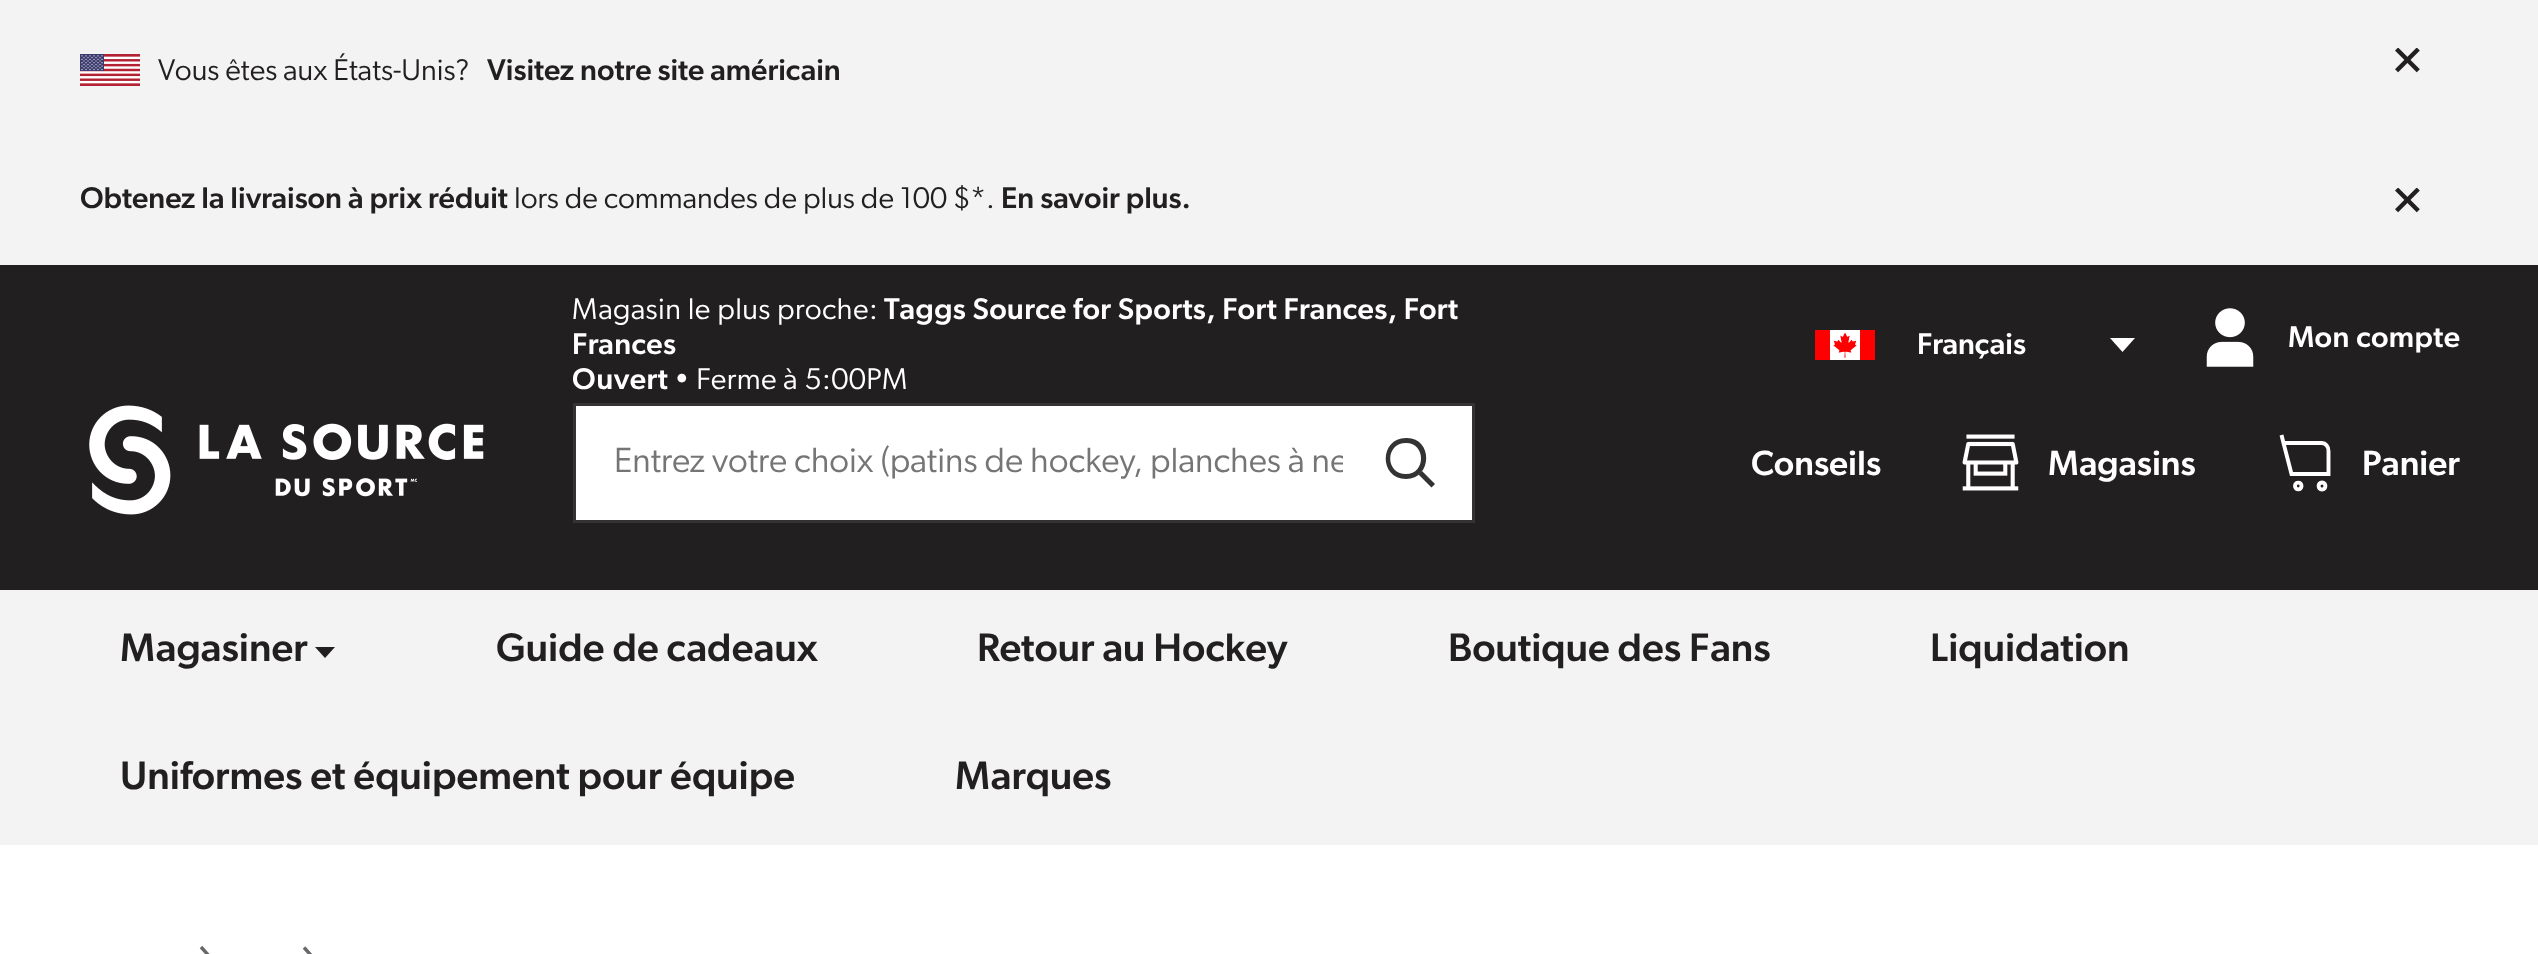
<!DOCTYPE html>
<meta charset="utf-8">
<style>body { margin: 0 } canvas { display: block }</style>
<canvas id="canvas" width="2538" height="954"></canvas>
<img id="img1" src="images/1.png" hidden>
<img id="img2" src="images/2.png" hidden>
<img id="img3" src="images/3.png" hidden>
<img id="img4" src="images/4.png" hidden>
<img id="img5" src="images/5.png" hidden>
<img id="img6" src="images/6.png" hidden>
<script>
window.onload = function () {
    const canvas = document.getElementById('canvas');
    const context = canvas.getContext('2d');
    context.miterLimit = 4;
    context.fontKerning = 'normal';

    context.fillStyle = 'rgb(34, 31, 32)';
    context.fillRect(0, 0, 2538, 954);
    context.fillStyle = 'rgb(243, 243, 243)';
    context.fillRect(0, 0, 2538, 265);
    context.drawImage(document.getElementById('img1'), 80, 54, 60, 32);
    context.drawImage(document.getElementById('img2'), 2395, 48, 25, 25);
    context.drawImage(document.getElementById('img2'), 2395, 188, 25, 25);
    context.drawImage(document.getElementById('img3'), 1815, 330, 60, 30);
    context.fillStyle = 'rgb(255, 255, 255)';
    context.beginPath();
    context.moveTo(2135, 338);
    context.lineTo(2122.5, 352);
    context.lineTo(2110, 338);
    context.closePath();
    context.fill();
    context.drawImage(document.getElementById('img4'), 2206, 308, 48, 59);
    context.drawImage(document.getElementById('img5'), 89, 405, 395, 110);
    context.beginPath();
    context.rect(574.5, 404.5, 899, 117);
    context.fill();
    context.strokeStyle = 'rgb(51, 51, 51)';
    context.lineWidth = 3;
    context.stroke();
    context.fillStyle = 'rgb(51, 51, 51)';
    context.beginPath();
    context.moveTo(1406, 474);
    context.bezierCurveTo(1426, 474, 1426, 443, 1406, 443);
    context.bezierCurveTo(1385, 443, 1385, 474, 1406, 474);
    context.closePath();
    context.moveTo(1406, 479);
    context.bezierCurveTo(1433, 479, 1433, 437, 1406, 438);
    context.bezierCurveTo(1379, 438, 1379, 479, 1406, 479);
    context.closePath();
    context.fill('evenodd');
    context.beginPath();
    context.moveTo(1431.5, 487.5);
    context.lineTo(1418.5, 474.5);
    context.lineTo(1422, 471);
    context.lineTo(1435, 484);
    context.closePath();
    context.fill('evenodd');
    context.drawImage(document.getElementById('img6'), 1962, 434, 57, 57);
    context.beginPath();
    context.moveTo(2281.5, 435);
    context.lineTo(2283.5, 443);
    context.moveTo(2283.5, 443);
    context.lineTo(2291.5, 474);
    context.lineTo(2328.5, 474);
    context.lineTo(2328.5, 451);
    context.bezierCurveTo(2328.5, 446.5, 2325.5, 443, 2322, 443);
    context.closePath();
    context.moveTo(2322, 489.5);
    context.bezierCurveTo(2317.5, 489.5, 2317.5, 482.5, 2322, 482.5);
    context.bezierCurveTo(2326.5, 482.5, 2326.5, 489.5, 2322, 489.5);
    context.closePath();
    context.moveTo(2295, 486);
    context.bezierCurveTo(2295, 481.5, 2301.5, 481.5, 2301.5, 486);
    context.bezierCurveTo(2301.5, 490.5, 2295, 490.5, 2295, 486);
    context.closePath();
    context.strokeStyle = 'rgb(255, 255, 255)';
    context.lineWidth = 3.9;
    context.stroke();
    context.fillStyle = 'rgb(243, 243, 243)';
    context.fillRect(0, 590, 2538, 255);
    context.fillStyle = 'rgb(34, 31, 32)';
    context.beginPath();
    context.moveTo(335, 647);
    context.lineTo(325, 658);
    context.lineTo(315, 647);
    context.closePath();
    context.fill();
    context.fillStyle = 'rgb(255, 255, 255)';
    context.fillRect(0, 845, 2538, 109);
    context.beginPath();
    context.moveTo(201, 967);
    context.lineTo(210, 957);
    context.lineTo(201, 947);
    context.strokeStyle = 'rgb(102, 104, 106)';
    context.lineWidth = 3.4;
    context.stroke();
    context.beginPath();
    context.moveTo(304, 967.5);
    context.lineTo(313, 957.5);
    context.lineTo(304, 947.5);
    context.stroke();
    context.font = '30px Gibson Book';
    context.fillStyle = 'rgb(34, 31, 32)';
    context.fillText('Vous êtes aux États-Unis?', 158, 80);
    context.font = '500 30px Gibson';
    context.fillText('Visitez notre site américain', 487, 80);
    context.fillText('Obtenez la livraison à prix réduit', 80, 208);
    context.font = '30px Gibson Book';
    context.fillText('lors de commandes de plus de 100 $*.', 514, 208);
    context.font = '500 30px Gibson';
    context.fillText('En savoir plus.', 1001, 208);
    context.letterSpacing = '0.4px';
    context.font = '30px Gibson Book';
    context.fillStyle = 'rgb(255, 255, 255)';
    context.fillText('Magasin le plus proche:', 572, 319);
    context.font = '500 30px Gibson';
    context.fillText('Taggs Source for Sports, Fort Frances, Fort', 884, 319);
    context.fillText('Frances', 572, 354);
    context.fillText('Ouvert', 572, 389);
    context.font = '30px Gibson Book';
    context.fillText('• Ferme à 5:00PM', 674, 389);
    context.letterSpacing = '0px';
    context.font = '500 30px Gibson';
    context.fillText('Français', 1917, 354);
    context.letterSpacing = '0.4px';
    context.fillText('Mon compte', 2288, 347);
    context.save();
    context.beginPath();
    context.rect(615, 445, 728, 38);
    context.clip();
    context.letterSpacing = '0px';
    context.font = '35px Gibson Book';
    context.fillStyle = 'rgb(117, 117, 117)';
    context.fillText('Entrez votre choix (patins de hockey, planches à ne', 614, 472);
    context.restore();
    context.letterSpacing = '0px';
    context.font = '500 35px Gibson';
    context.fillText('Conseils', 1751, 475);
    context.fillText('Magasins', 2048, 475);
    context.fillText('Panier', 2362, 475);
    context.font = '500 40px Gibson';
    context.fillStyle = 'rgb(34, 31, 32)';
    context.fillText('Magasiner', 120, 661);
    context.fillText('Guide de cadeaux', 496, 661);
    context.fillText('Retour au Hockey', 977, 661);
    context.fillText('Boutique des Fans', 1448, 661);
    context.fillText('Liquidation', 1930, 661);
    context.fillText('Uniformes et équipement pour équipe', 120, 789);
    context.fillText('Marques', 955, 789);
};
</script>
